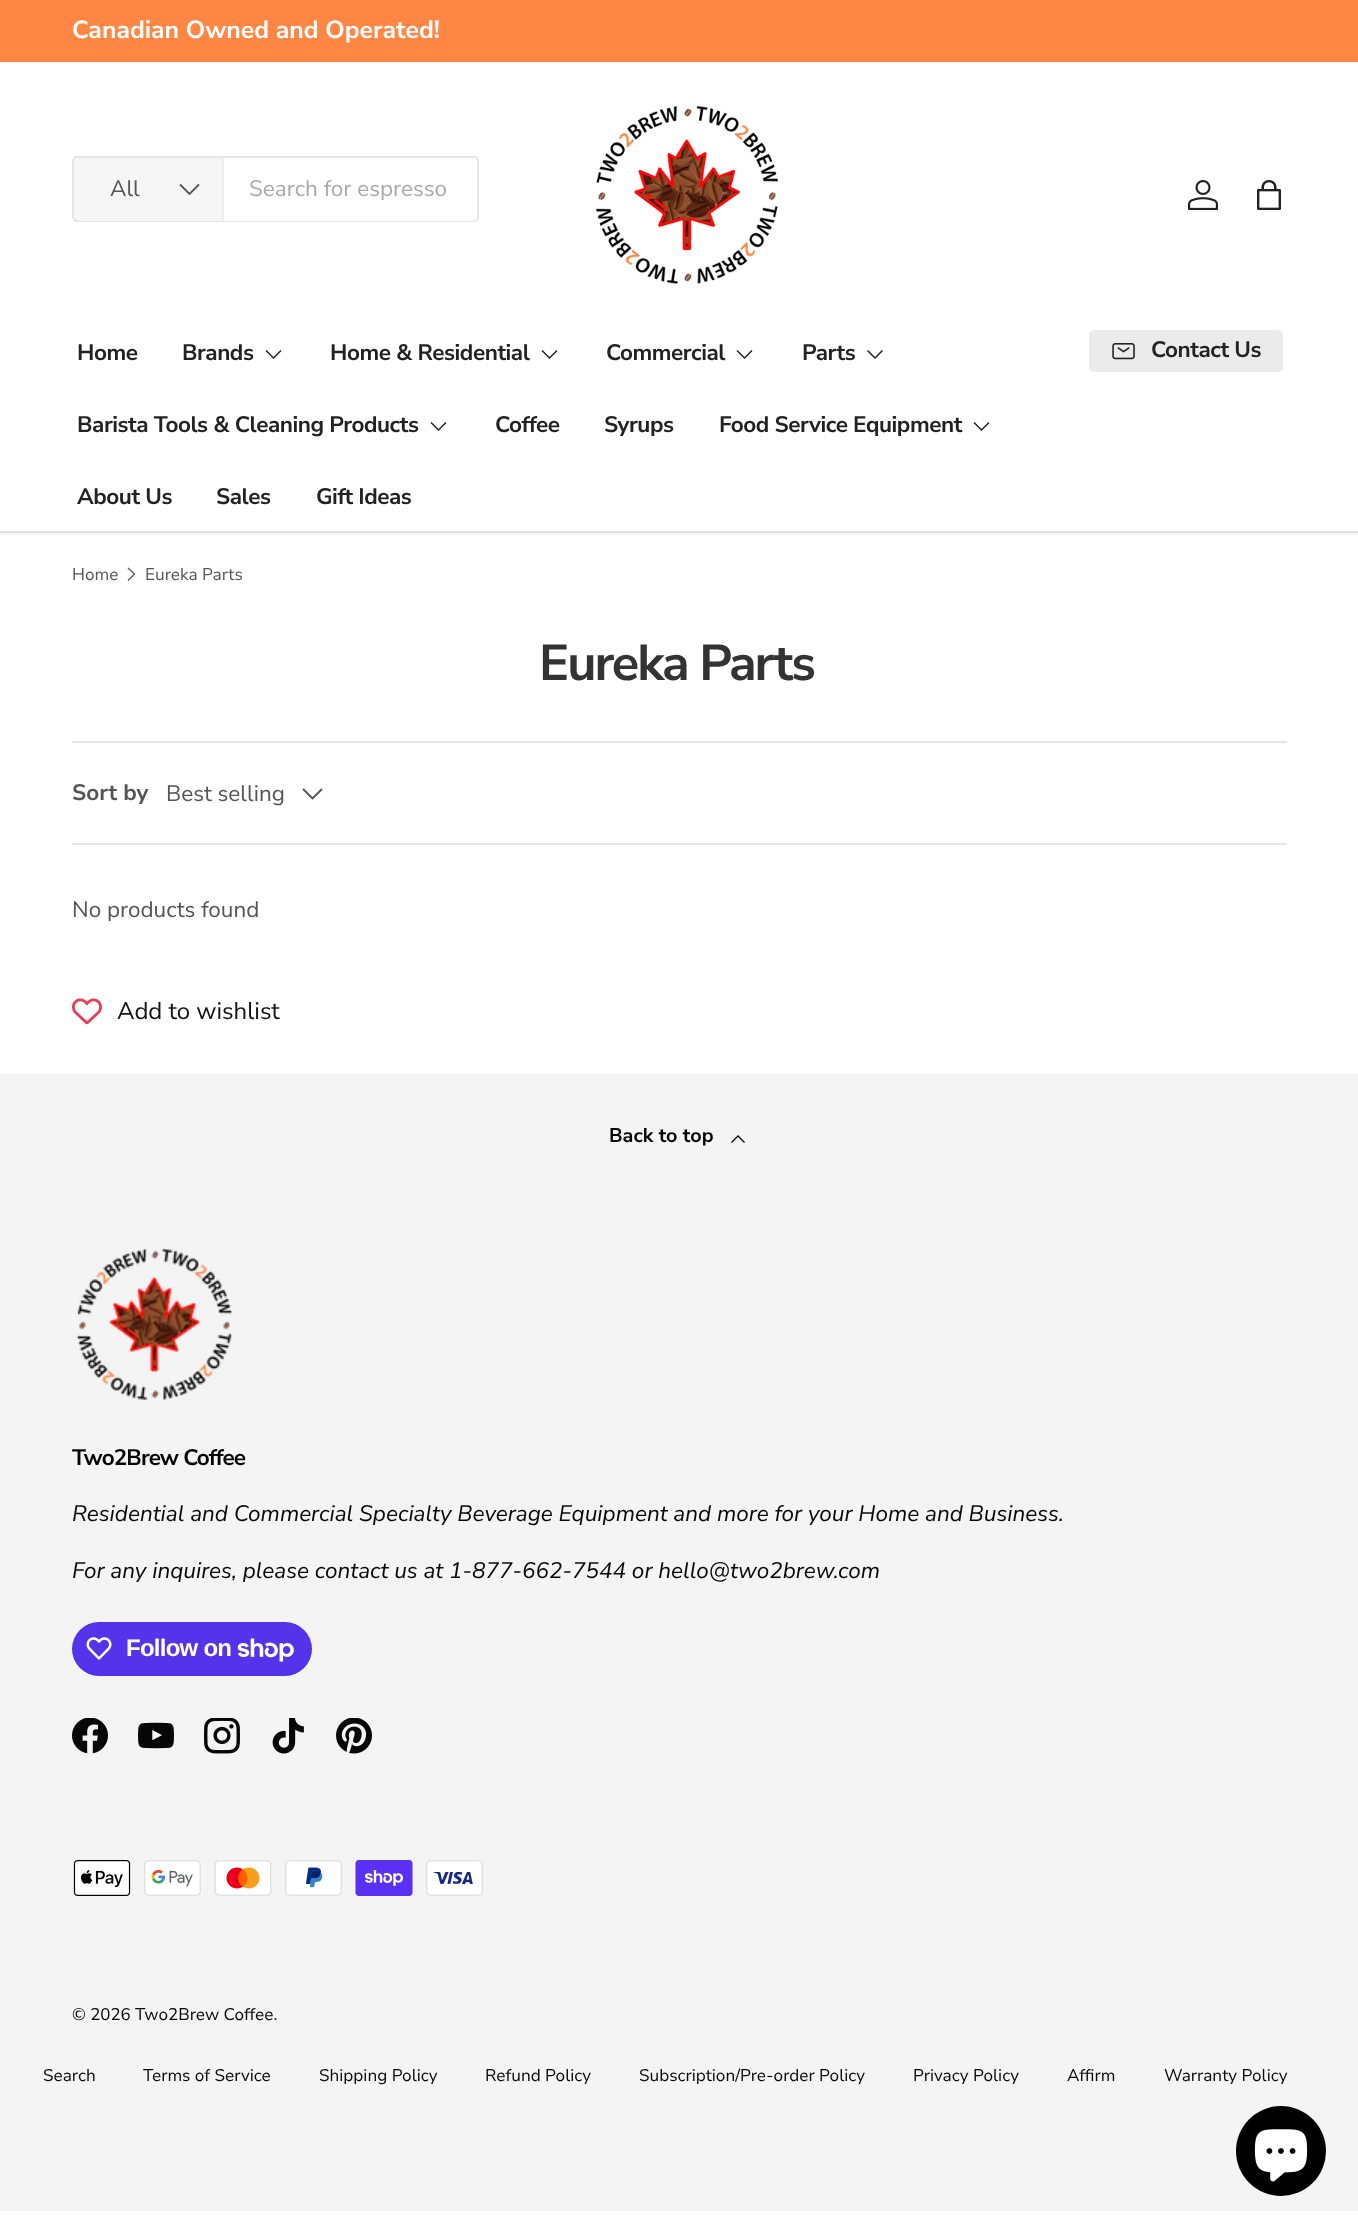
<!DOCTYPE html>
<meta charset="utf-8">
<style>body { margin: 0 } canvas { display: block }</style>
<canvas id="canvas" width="1358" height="2227"></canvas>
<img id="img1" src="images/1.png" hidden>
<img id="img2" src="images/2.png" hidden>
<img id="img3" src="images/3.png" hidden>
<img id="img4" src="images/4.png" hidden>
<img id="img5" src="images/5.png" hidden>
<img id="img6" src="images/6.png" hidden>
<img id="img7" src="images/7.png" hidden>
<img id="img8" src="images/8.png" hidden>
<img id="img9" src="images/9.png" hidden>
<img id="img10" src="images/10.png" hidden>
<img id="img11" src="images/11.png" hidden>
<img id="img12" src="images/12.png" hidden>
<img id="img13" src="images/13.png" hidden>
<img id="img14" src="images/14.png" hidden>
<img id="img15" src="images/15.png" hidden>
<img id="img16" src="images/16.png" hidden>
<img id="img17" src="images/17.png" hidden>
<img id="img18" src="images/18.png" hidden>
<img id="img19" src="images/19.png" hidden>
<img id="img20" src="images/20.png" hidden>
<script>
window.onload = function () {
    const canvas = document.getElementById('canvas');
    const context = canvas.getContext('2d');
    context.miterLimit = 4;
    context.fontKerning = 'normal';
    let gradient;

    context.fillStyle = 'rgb(255, 255, 255)';
    context.fillRect(0, 0, 1358, 2227);
    context.fillStyle = 'rgba(0, 0, 0, 0.08)';
    context.filter = 'blur(2px)';
    context.beginPath();
    context.rect(-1, 60, 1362, 474);
    context.fill();
    context.filter = 'none';
    context.fillStyle = 'rgb(255, 134, 67)';
    context.fillRect(0, 0, 1358, 62);
    context.fillStyle = 'rgb(255, 255, 255)';
    context.fillRect(0, 62, 1358, 469);
    context.beginPath();
    context.roundRect(73, 157, 405, 64, 4);
    context.strokeStyle = 'rgb(230, 230, 230)';
    context.lineWidth = 2;
    context.stroke();
    context.beginPath();
    context.roundRect(74, 158, 403, 63, 5);
    context.fill();
    context.fillStyle = 'rgba(85, 85, 85, 0.05)';
    context.fillRect(74, 158, 148, 63);
    context.fillStyle = 'rgb(238, 238, 238)';
    context.fillRect(222, 158, 2, 63);
    context.beginPath();
    context.moveTo(199, 184.5);
    context.lineTo(189.5, 194);
    context.lineTo(180, 184.5);
    context.strokeStyle = 'rgb(85, 85, 85)';
    context.lineWidth = 1.9;
    context.stroke();
    context.drawImage(document.getElementById('img1'), 595, 105, 184, 179);
    context.drawImage(document.getElementById('img2'), 1188, 180, 30, 30);
    context.drawImage(document.getElementById('img3'), 1257, 180, 24, 30);
    context.beginPath();
    context.moveTo(281, 350.5);
    context.lineTo(273.5, 358);
    context.lineTo(266, 350.5);
    context.strokeStyle = 'rgb(34, 34, 34)';
    context.lineWidth = 1.5;
    context.stroke();
    context.beginPath();
    context.moveTo(557, 350.5);
    context.lineTo(549.5, 358);
    context.lineTo(542, 350.5);
    context.stroke();
    context.beginPath();
    context.moveTo(752, 350.5);
    context.lineTo(744.5, 358);
    context.lineTo(737, 350.5);
    context.stroke();
    context.beginPath();
    context.moveTo(882.5, 350.5);
    context.lineTo(875, 358);
    context.lineTo(867.5, 350.5);
    context.stroke();
    context.beginPath();
    context.moveTo(446, 422.5);
    context.lineTo(438.5, 430);
    context.lineTo(431, 422.5);
    context.stroke();
    context.beginPath();
    context.moveTo(989, 422.5);
    context.lineTo(981.5, 430);
    context.lineTo(974, 422.5);
    context.stroke();
    context.save();
    context.beginPath();
    context.roundRect(1089, 330, 194, 42, 5);
    context.clip();
    gradient = context.createLinearGradient(722, 283, 1269, 419);
    gradient.addColorStop(0.6, 'rgb(213, 213, 213)');
    gradient.addColorStop(0.6, 'rgb(235, 235, 235)');
    gradient.addColorStop(1, 'rgb(235, 235, 235)');
    context.fillStyle = gradient;
    context.fillRect(1089, 332, 192, 39);
    context.restore();
    context.beginPath();
    context.roundRect(1090, 331, 192, 40, 4);
    context.strokeStyle = 'rgb(235, 235, 235)';
    context.lineWidth = 2;
    context.stroke();
    context.drawImage(document.getElementById('img4'), 1112, 343, 23, 17);
    context.fillStyle = 'rgb(222, 222, 222)';
    context.fillRect(0, 531, 1358, 2);
    context.beginPath();
    context.moveTo(128, 568);
    context.lineTo(134.5, 574);
    context.lineTo(128, 580.5);
    context.strokeStyle = 'rgb(85, 85, 85)';
    context.lineWidth = 1.3;
    context.stroke();
    context.fillStyle = 'rgb(230, 230, 230)';
    context.fillRect(72, 741, 1215, 2);
    context.fillRect(72, 843, 1215, 2);
    context.beginPath();
    context.moveTo(322, 789);
    context.lineTo(312.5, 798.5);
    context.lineTo(303, 789);
    context.lineWidth = 1.9;
    context.stroke();
    context.drawImage(document.getElementById('img5'), 72, 998, 30, 27);
    context.fillStyle = 'rgb(244, 244, 244)';
    context.fillRect(0, 1074, 1358, 1137);
    context.beginPath();
    context.moveTo(731.5, 1142.5);
    context.lineTo(738, 1136);
    context.lineTo(744.5, 1142.5);
    context.strokeStyle = 'rgb(7, 7, 7)';
    context.lineWidth = 1.3;
    context.stroke();
    context.drawImage(document.getElementById('img6'), 76, 1248, 157, 152);
    context.fillStyle = 'rgb(84, 51, 235)';
    context.beginPath();
    context.roundRect(72, 1622, 240, 54, 27);
    context.fill();
    context.drawImage(document.getElementById('img7'), 86, 1637, 26, 23);
    context.drawImage(document.getElementById('img8'), 237, 1638, 57, 24);
    context.drawImage(document.getElementById('img9'), 72, 1718, 36, 36);
    context.drawImage(document.getElementById('img10'), 138, 1722, 36, 27);
    context.drawImage(document.getElementById('img11'), 204, 1718, 36, 36);
    context.drawImage(document.getElementById('img12'), 272, 1718, 32, 36);
    context.drawImage(document.getElementById('img13'), 336, 1718, 36, 36);
    context.drawImage(document.getElementById('img14'), 73, 1860, 58, 36);
    context.drawImage(document.getElementById('img15'), 144, 1860, 57, 36);
    context.drawImage(document.getElementById('img16'), 214, 1860, 58, 36);
    context.drawImage(document.getElementById('img17'), 285, 1860, 57, 36);
    context.drawImage(document.getElementById('img18'), 355, 1860, 58, 36);
    context.drawImage(document.getElementById('img19'), 426, 1860, 57, 36);
    context.fillStyle = 'rgb(0, 0, 0)';
    context.beginPath();
    context.arc(1281, 2151, 45, 0, 2 * Math.PI);
    context.fill();
    context.drawImage(document.getElementById('img20'), 1254, 2129, 54, 53);
    context.font = 'bold 24.75px Nunito Sans';
    context.fillStyle = 'rgb(255, 255, 255)';
    context.fillText('Canadian Owned and Operated!', 72, 38);
    context.font = '22.5px Nunito Sans';
    context.fillStyle = 'rgb(85, 85, 85)';
    context.fillText('All', 110, 196);
    context.fillStyle = 'rgb(170, 170, 170)';
    context.fillText('Search for espresso', 249, 196);
    context.letterSpacing = '-0.45px';
    context.font = 'bold 22.5px Nunito Sans';
    context.fillStyle = 'rgb(34, 34, 34)';
    context.fillText('Home', 77, 360);
    context.fillText('Brands', 182, 360);
    context.fillText('Home & Residential', 330, 360);
    context.fillText('Commercial', 606, 360);
    context.fillText('Parts', 802, 360);
    context.fillText('Barista Tools & Cleaning Products', 77, 432);
    context.fillText('Coffee', 495, 432);
    context.fillText('Syrups', 604, 432);
    context.fillText('Food Service Equipment', 719, 432);
    context.fillText('About Us', 77, 504);
    context.fillText('Sales', 216, 504);
    context.fillText('Gift Ideas', 316, 504);
    context.fillText('Contact Us', 1151, 357);
    context.letterSpacing = '0px';
    context.font = '16.9px "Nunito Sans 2"';
    context.fillStyle = 'rgb(85, 85, 85)';
    context.fillText('Home', 72, 580);
    context.fillText('Eureka Parts', 145, 580);
    context.letterSpacing = '-2px';
    context.font = 'bold 50.5px Nunito Sans';
    context.fillStyle = 'rgb(51, 51, 51)';
    context.fillText('Eureka Parts', 539, 680);
    context.letterSpacing = '0px';
    context.font = 'bold 22.5px Nunito Sans';
    context.fillStyle = 'rgb(85, 85, 85)';
    context.fillText('Sort by', 72, 800);
    context.font = '22.5px Nunito Sans';
    context.fillText('Best selling', 166, 801);
    context.fillText('No products found', 72, 917);
    context.font = '24px Nunito Sans';
    context.fillStyle = 'rgb(18, 18, 18)';
    context.fillText('Add to wishlist', 117, 1019);
    context.font = 'bold 19.75px Nunito Sans';
    context.fillStyle = 'rgb(7, 7, 7)';
    context.fillText('Back to top', 609, 1142);
    context.letterSpacing = '-0.9px';
    context.font = 'bold 22.5px Nunito Sans';
    context.fillText('Two2Brew Coffee', 72, 1465);
    context.letterSpacing = '0px';
    context.font = 'italic 22.5px Nunito Sans';
    context.fillText('Residential and Commercial Specialty Beverage Equipment and more for your Home and Business.', 72, 1521);
    context.fillText('For any inquires, please contact us at 1-877-662-7544 or hello@two2brew.com', 72, 1578);
    context.letterSpacing = '-0.75px';
    context.font = 'bold 24px Liberation Sans';
    context.fillStyle = 'rgb(255, 255, 255)';
    context.fillText('Follow on', 126, 1656);
    context.letterSpacing = '0px';
    context.font = '16.9px "Nunito Sans 2"';
    context.fillStyle = 'rgb(7, 7, 7)';
    context.fillText('© 2026 Two2Brew Coffee.', 72, 2020);
    context.fillText('Search', 43, 2081);
    context.fillText('Terms of Service', 143, 2081);
    context.fillText('Shipping Policy', 319, 2081);
    context.fillText('Refund Policy', 485, 2081);
    context.fillText('Subscription/Pre-order Policy', 639, 2081);
    context.fillText('Privacy Policy', 913, 2081);
    context.fillText('Affirm', 1067, 2081);
    context.fillText('Warranty Policy', 1164, 2081);
};
</script>
